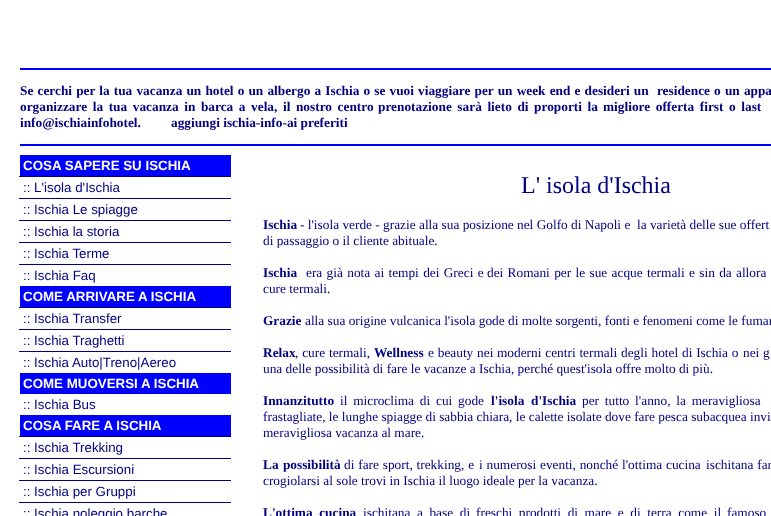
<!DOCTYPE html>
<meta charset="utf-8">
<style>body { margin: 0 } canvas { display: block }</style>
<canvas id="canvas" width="771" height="516"></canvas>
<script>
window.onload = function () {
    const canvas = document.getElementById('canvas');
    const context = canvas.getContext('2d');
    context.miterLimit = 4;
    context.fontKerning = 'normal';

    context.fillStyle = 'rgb(255, 255, 255)';
    context.fillRect(0, 0, 771, 516);
    context.fillStyle = 'rgb(0, 0, 255)';
    context.fillRect(20, 68, 751, 2);
    context.fillRect(20, 144, 751, 2);
    context.fillRect(20, 155, 211, 21);
    context.fillStyle = 'rgb(0, 0, 128)';
    context.fillRect(19, 176, 212, 1);
    context.fillRect(19, 198, 212, 1);
    context.fillRect(19, 220, 212, 1);
    context.fillRect(19, 242, 212, 1);
    context.fillRect(19, 264, 212, 1);
    context.fillStyle = 'rgb(0, 0, 255)';
    context.fillRect(20, 286, 211, 21);
    context.fillStyle = 'rgb(0, 0, 128)';
    context.fillRect(19, 307, 212, 1);
    context.fillRect(19, 329, 212, 1);
    context.fillRect(19, 351, 212, 1);
    context.fillStyle = 'rgb(0, 0, 255)';
    context.fillRect(20, 373, 211, 21);
    context.fillRect(20, 415, 211, 21);
    context.fillStyle = 'rgb(0, 0, 128)';
    context.fillRect(19, 436, 212, 1);
    context.fillRect(19, 458, 212, 1);
    context.fillRect(19, 480, 212, 1);
    context.fillRect(19, 502, 212, 1);
    context.wordSpacing = '0.8px';
    context.font = 'bold 13.33px Liberation Serif';
    context.fillText('Se cerchi per la tua vacanza un hotel o un albergo a Ischia o se vuoi viaggiare per un week end e desideri un  residence o un appa', 20, 95);
    context.wordSpacing = '2.25px';
    context.fillText('organizzare la tua vacanza in barca a vela, il nostro centro', 20, 111);
    context.fillText('prenotazione sarà lieto di proporti la', 378, 111);
    context.fillText('migliore offerta first o last', 603, 111);
    context.wordSpacing = '0px';
    context.fillText('info@ischiainfohotel.', 20, 127);
    context.fillText('aggiungi ischia-info-ai preferiti', 171, 127);
    context.font = 'bold 13.33px Liberation Sans';
    context.fillStyle = 'rgb(255, 255, 255)';
    context.fillText('COSA SAPERE SU ISCHIA', 23, 170);
    context.font = '13.33px Liberation Sans';
    context.fillStyle = 'rgb(0, 0, 128)';
    context.fillText(':: L\'isola d\'Ischia', 23, 192);
    context.fillText(':: Ischia Le spiagge', 23, 214);
    context.fillText(':: Ischia la storia', 23, 236);
    context.fillText(':: Ischia Terme', 23, 258);
    context.fillText(':: Ischia Faq', 23, 280);
    context.font = 'bold 13.33px Liberation Sans';
    context.fillStyle = 'rgb(255, 255, 255)';
    context.fillText('COME ARRIVARE A ISCHIA', 23, 301);
    context.font = '13.33px Liberation Sans';
    context.fillStyle = 'rgb(0, 0, 128)';
    context.fillText(':: Ischia Transfer', 23, 323);
    context.fillText(':: Ischia Traghetti', 23, 345);
    context.fillText(':: Ischia Auto|Treno|Aereo', 23, 367);
    context.font = 'bold 13.33px Liberation Sans';
    context.fillStyle = 'rgb(255, 255, 255)';
    context.fillText('COME MUOVERSI A ISCHIA', 23, 388);
    context.font = '13.33px Liberation Sans';
    context.fillStyle = 'rgb(0, 0, 128)';
    context.fillText(':: Ischia Bus', 23, 409);
    context.font = 'bold 13.33px Liberation Sans';
    context.fillStyle = 'rgb(255, 255, 255)';
    context.fillText('COSA FARE A ISCHIA', 23, 430);
    context.font = '13.33px Liberation Sans';
    context.fillStyle = 'rgb(0, 0, 128)';
    context.fillText(':: Ischia Trekking', 23, 452);
    context.fillText(':: Ischia Escursioni', 23, 474);
    context.fillText(':: Ischia per Gruppi', 23, 496);
    context.fillText(':: Ischia noleggio barche', 23, 518);
    context.font = '24px Liberation Serif';
    context.fillText('L\' isola d\'Ischia', 521, 193);
    context.font = 'bold 13.33px Liberation Serif';
    context.fillText('Ischia', 263, 229);
    context.font = '13.33px Liberation Serif';
    context.fillText('- l\'isola verde - grazie alla sua posizione nel Golfo di Napoli e  la varietà delle sue offert', 300, 229);
    context.fillText('di passaggio o il cliente abituale.', 263, 245);
    context.font = 'bold 13.33px Liberation Serif';
    context.fillText('Ischia', 263, 277);
    context.wordSpacing = '1px';
    context.font = '13.33px Liberation Serif';
    context.fillText('era già nota ai tempi dei Greci e', 306, 277);
    context.fillText('dei Romani per le sue acque termali e sin da', 487, 277);
    context.fillText('allora', 736, 277);
    context.wordSpacing = '0px';
    context.fillText('cure termali.', 263, 293);
    context.font = 'bold 13.33px Liberation Serif';
    context.fillText('Grazie', 263, 325);
    context.font = '13.33px Liberation Serif';
    context.fillText('alla sua origine vulcanica l\'isola gode di molte sorgenti, fonti e fenomeni come le fumar', 305, 325);
    context.font = 'bold 13.33px Liberation Serif';
    context.fillText('Relax', 263, 357);
    context.wordSpacing = '0.5px';
    context.font = '13.33px Liberation Serif';
    context.fillText(', cure termali,', 295, 357);
    context.wordSpacing = '0px';
    context.font = 'bold 13.33px Liberation Serif';
    context.fillText('Wellness', 374, 357);
    context.wordSpacing = '0.5px';
    context.font = '13.33px Liberation Serif';
    context.fillText('e beauty nei', 428, 357);
    context.fillText('moderni centri termali degli hotel di Ischia o', 497, 357);
    context.fillText('nei g', 743, 357);
    context.wordSpacing = '0px';
    context.fillText('una delle possibilità di fare le vacanze a Ischia, perché quest\'isola offre molto di più.', 263, 373);
    context.font = 'bold 13.33px Liberation Serif';
    context.fillText('Innanzitutto', 263, 405);
    context.wordSpacing = '2.5px';
    context.font = '13.33px Liberation Serif';
    context.fillText('il microclima di cui gode', 340, 405);
    context.wordSpacing = '0px';
    context.font = 'bold 13.33px Liberation Serif';
    context.fillText('l\'isola', 491, 405);
    context.fillText('d\'Ischia', 531, 405);
    context.wordSpacing = '2.5px';
    context.font = '13.33px Liberation Serif';
    context.fillText('per tutto l\'anno, la meravigliosa', 582, 405);
    context.wordSpacing = '0px';
    context.fillText('frastagliate, le lunghe spiagge di sabbia chiara, le calette isolate dove fare pesca subacquea invi', 263, 421);
    context.fillText('meravigliosa vacanza al mare.', 263, 437);
    context.wordSpacing = '1px';
    context.font = 'bold 13.33px Liberation Serif';
    context.fillText('La possibilità', 263, 469);
    context.wordSpacing = '0.5px';
    context.font = '13.33px Liberation Serif';
    context.fillText('di fare sport, trekking, e', 344, 469);
    context.fillText('i numerosi eventi, nonché l\'ottima cucina', 479, 469);
    context.fillText('ischitana fan', 706, 469);
    context.wordSpacing = '0px';
    context.fillText('crogiolarsi al sole trovi in Ischia il luogo ideale per la vacanza.', 263, 485);
    context.wordSpacing = '3.25px';
    context.font = 'bold 13.33px Liberation Serif';
    context.fillText('L\'ottima cucina', 263, 517);
    context.font = '13.33px Liberation Serif';
    context.fillText('ischitana a base di', 363, 517);
    context.fillText('freschi prodotti di mare e di terra come il', 476, 517);
    context.fillText('famoso', 727, 517);
};
</script>
